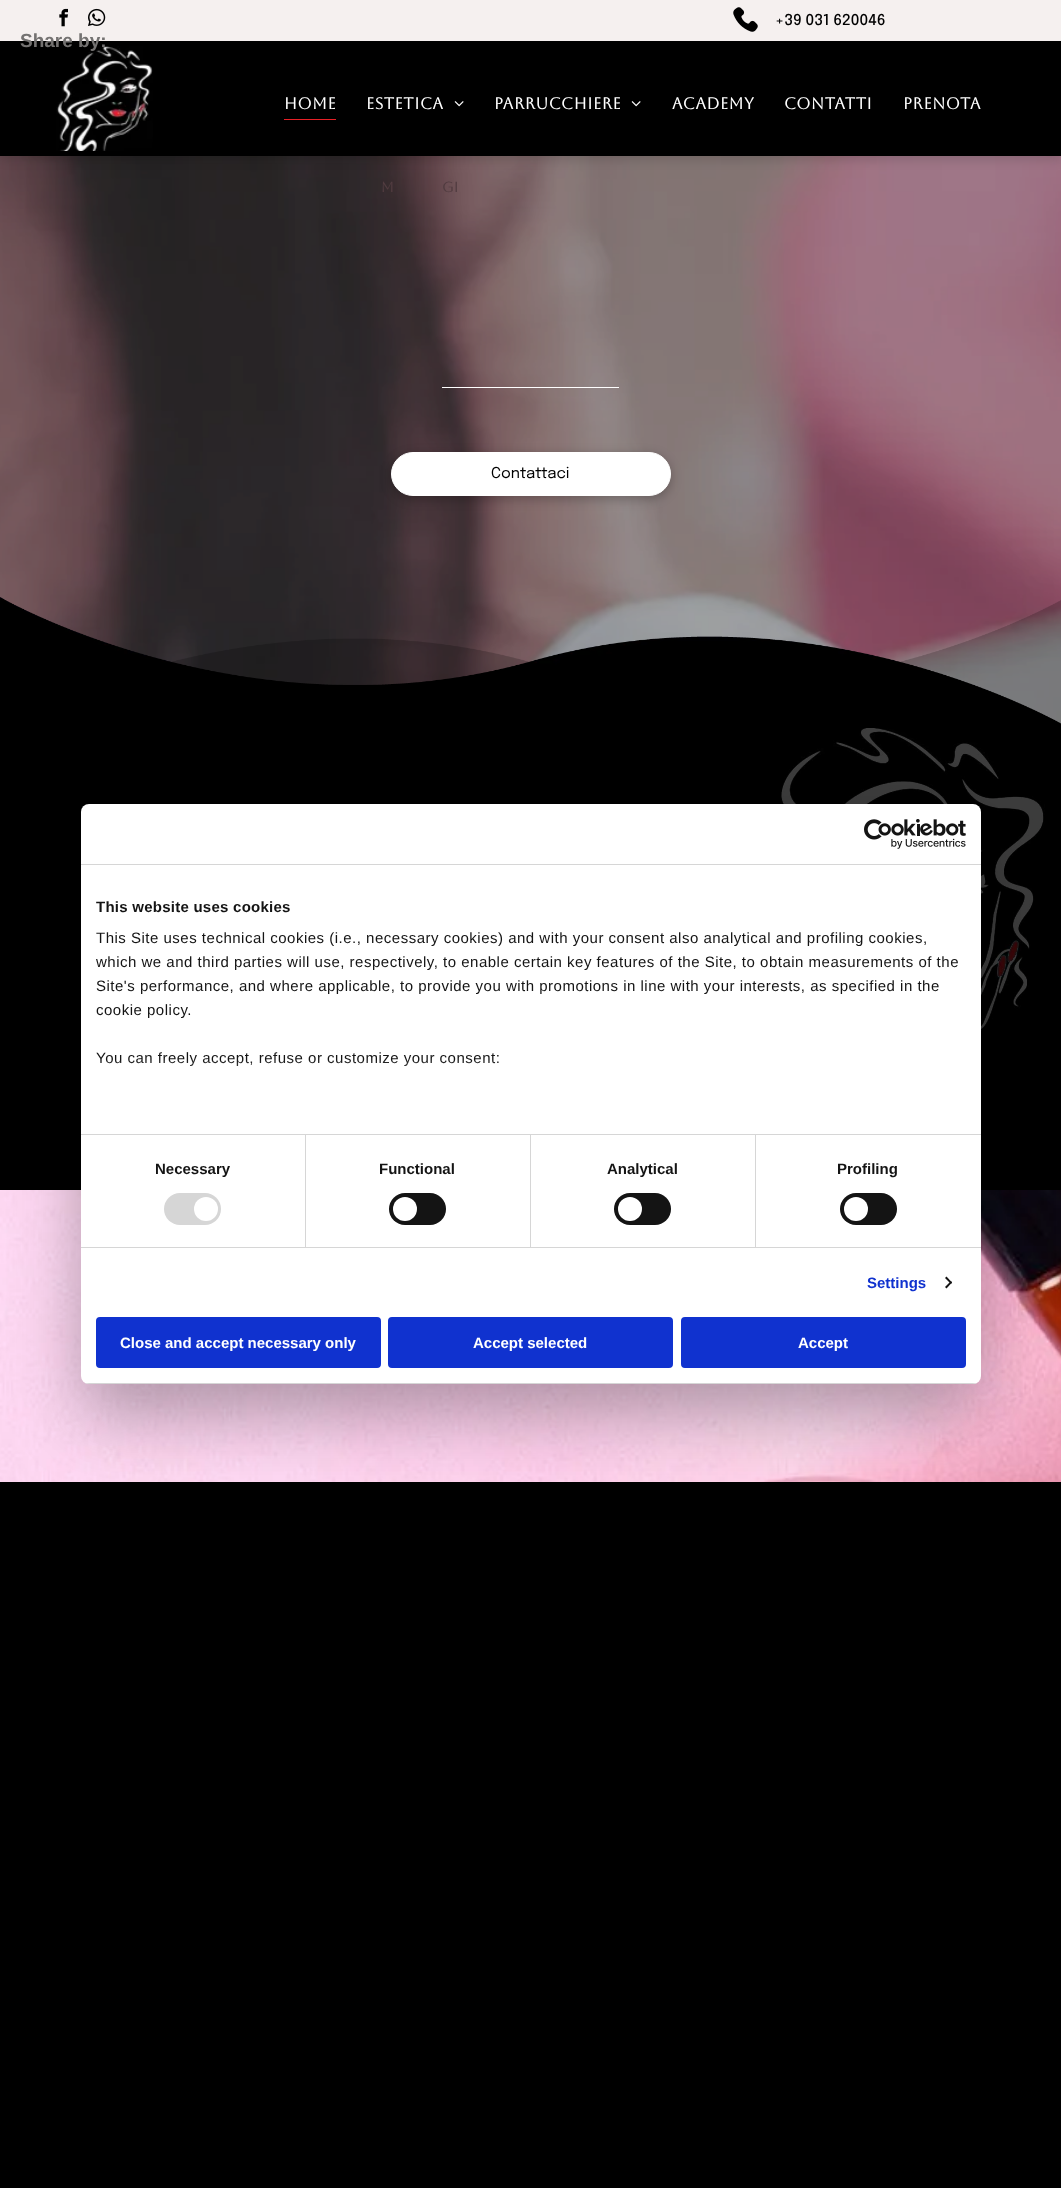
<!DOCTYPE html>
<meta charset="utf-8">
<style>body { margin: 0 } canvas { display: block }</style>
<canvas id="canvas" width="1061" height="2188"></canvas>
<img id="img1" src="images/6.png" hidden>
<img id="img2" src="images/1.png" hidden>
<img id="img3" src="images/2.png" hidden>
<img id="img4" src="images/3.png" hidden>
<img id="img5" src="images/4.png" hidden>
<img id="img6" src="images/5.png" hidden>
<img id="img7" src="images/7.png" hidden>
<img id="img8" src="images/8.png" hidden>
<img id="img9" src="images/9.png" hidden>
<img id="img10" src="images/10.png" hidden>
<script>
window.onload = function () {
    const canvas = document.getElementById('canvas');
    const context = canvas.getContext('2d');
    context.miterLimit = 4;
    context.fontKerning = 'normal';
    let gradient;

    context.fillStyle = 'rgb(255, 255, 255)';
    context.fillRect(0, 0, 1061, 2188);
    context.drawImage(document.getElementById('img1'), 0, 156, 1061, 568);
    context.fillStyle = 'rgba(0, 0, 0, 0.15)';
    context.filter = 'blur(5.5px)';
    context.beginPath();
    context.rect(0, 3, 1061, 156);
    context.fill();
    context.filter = 'none';
    context.fillStyle = 'rgb(0, 0, 0)';
    context.fillRect(0, 41, 1061, 115);
    context.fillStyle = 'rgb(245, 240, 239)';
    context.fillRect(0, 0, 1061, 41);
    context.drawImage(document.getElementById('img2'), 59, 8, 9, 19);
    context.drawImage(document.getElementById('img3'), 88, 8, 18, 18);
    context.drawImage(document.getElementById('img4'), 733, 7, 25, 25);
    context.drawImage(document.getElementById('img5'), 56, 46, 97, 105);
    context.fillStyle = 'rgb(231, 32, 38)';
    context.fillRect(284, 119, 52, 1);
    context.drawImage(document.getElementById('img6'), 454, 101, 10, 6);
    context.drawImage(document.getElementById('img6'), 631, 101, 10, 6);
    context.fillStyle = 'rgb(255, 255, 255)';
    context.fillRect(442, 387, 177, 1);
    context.fillStyle = 'rgba(0, 0, 0, 0.25)';
    context.filter = 'blur(5.5px)';
    context.beginPath();
    context.roundRect(391, 455, 280, 44, 22);
    context.fill();
    context.filter = 'none';
    context.fillStyle = 'rgb(255, 255, 255)';
    context.beginPath();
    context.roundRect(391.5, 452.5, 279, 43, 21.5);
    context.fill();
    context.strokeStyle = 'rgb(255, 255, 255)';
    context.stroke();
    context.drawImage(document.getElementById('img7'), 0, 597, 1061, 127);
    context.fillStyle = 'rgb(0, 0, 0)';
    context.fillRect(0, 724, 1061, 466);
    context.drawImage(document.getElementById('img8'), 685, 728, 364, 396);
    context.drawImage(document.getElementById('img9'), 0, 1190, 1061, 292);
    context.fillRect(0, 1482, 1061, 706);
    context.fillStyle = 'rgba(0, 0, 0, 0.3)';
    context.filter = 'blur(34px)';
    context.beginPath();
    context.roundRect(81, 836, 900, 580, 8);
    context.fill();
    context.filter = 'none';
    context.fillStyle = 'rgb(255, 255, 255)';
    context.beginPath();
    context.roundRect(81, 804, 900, 580, 8);
    context.fill();
    context.fillStyle = 'rgb(214, 214, 214)';
    context.fillRect(81, 864, 900, 1);
    context.drawImage(document.getElementById('img10'), 864, 819, 102, 30);
    context.fillRect(81, 1134, 900, 1);
    context.fillRect(81, 1247, 900, 1);
    context.fillRect(305, 1135, 1, 112);
    context.beginPath();
    context.roundRect(164, 1193, 57, 32, 16);
    context.fill();
    context.fillStyle = 'rgb(255, 255, 255)';
    context.beginPath();
    context.arc(206, 1209, 12, 0, 2 * Math.PI);
    context.fill();
    context.fillStyle = 'rgb(214, 214, 214)';
    context.fillRect(530, 1135, 1, 112);
    context.fillStyle = 'rgb(20, 20, 20)';
    context.beginPath();
    context.roundRect(389, 1193, 57, 32, 16);
    context.fill();
    context.fillStyle = 'rgb(255, 255, 255)';
    context.beginPath();
    context.arc(405, 1209, 12, 0, 2 * Math.PI);
    context.fill();
    context.fillStyle = 'rgb(214, 214, 214)';
    context.fillRect(755, 1135, 1, 112);
    context.fillStyle = 'rgb(20, 20, 20)';
    context.beginPath();
    context.roundRect(614, 1193, 57, 32, 16);
    context.fill();
    context.fillStyle = 'rgb(255, 255, 255)';
    context.beginPath();
    context.arc(630, 1209, 12, 0, 2 * Math.PI);
    context.fill();
    context.fillStyle = 'rgb(20, 20, 20)';
    context.beginPath();
    context.roundRect(840, 1193, 57, 32, 16);
    context.fill();
    context.fillStyle = 'rgb(255, 255, 255)';
    context.beginPath();
    context.arc(856, 1209, 12, 0, 2 * Math.PI);
    context.fill();
    context.fillStyle = 'rgb(20, 20, 20)';
    context.beginPath();
    context.moveTo(946.5, 1276.5);
    context.lineTo(952, 1282.5);
    context.lineTo(951, 1284);
    context.lineTo(945, 1278);
    context.closePath();
    context.fill();
    context.beginPath();
    context.moveTo(951, 1281);
    context.lineTo(952, 1282.5);
    context.lineTo(946.5, 1288.5);
    context.lineTo(945, 1287);
    context.closePath();
    context.fill();
    context.save();
    context.beginPath();
    context.roundRect(81, 804, 900, 580, 8);
    context.clip();
    context.fillStyle = 'rgb(214, 214, 214)';
    context.fillRect(81, 1383, 900, 1);
    context.restore();
    context.fillStyle = 'rgb(16, 50, 207)';
    context.beginPath();
    context.roundRect(97, 1318, 283, 49, 3);
    context.fill();
    context.strokeStyle = 'rgb(16, 50, 207)';
    context.lineWidth = 2;
    context.stroke();
    context.beginPath();
    context.roundRect(389, 1318, 283, 49, 3);
    context.fill();
    context.stroke();
    context.beginPath();
    context.roundRect(682, 1318, 283, 49, 3);
    context.fill();
    context.stroke();
    context.font = 'bold 19px Liberation Sans';
    context.fillStyle = 'rgb(116, 114, 113)';
    context.fillText('Share by:', 20, 47);
    context.font = '500 15px Epilogue';
    context.fillStyle = 'rgb(0, 0, 0)';
    context.fillText('+39 031 620046', 775, 25);
    context.letterSpacing = '0.5px';
    context.font = 'bold 16px Aboreto';
    context.fillStyle = 'rgb(255, 255, 255)';
    context.fillText('Home', 284, 109);
    context.fillText('Estetica', 366, 109);
    context.letterSpacing = '0px';
    context.font = 'bold 14px Aboreto';
    context.fillStyle = 'rgb(81, 60, 64)';
    context.fillText('M', 381, 192);
    context.fillText('gi', 442, 192);
    context.letterSpacing = '0.5px';
    context.font = 'bold 16px Aboreto';
    context.fillStyle = 'rgb(255, 255, 255)';
    context.fillText('Parrucchiere', 494, 109);
    context.fillText('ACADEMY', 672, 109);
    context.fillText('Contatti', 784, 109);
    context.fillText('PRENOTA', 903, 109);
    context.letterSpacing = '0px';
    context.font = '15px Epilogue';
    context.fillStyle = 'rgb(0, 0, 0)';
    context.fillText('Contattaci', 491, 478);
    context.letterSpacing = '0.25px';
    context.font = 'bold 15px Liberation Sans';
    context.fillStyle = 'rgb(20, 20, 20)';
    context.fillText('This website uses cookies', 96, 912);
    context.letterSpacing = '0.5px';
    context.font = '15px Liberation Sans';
    context.fillText('This Site uses technical cookies (i.e., necessary cookies) and with your consent also analytical and profiling cookies,', 96, 943);
    context.fillText('which we and third parties will use, respectively, to enable certain key features of the Site, to obtain measurements of the', 96, 967);
    context.fillText('Site\'s performance, and where applicable, to provide you with promotions in line with your interests, as specified in the', 96, 991);
    context.fillText('cookie policy.', 96, 1015);
    context.fillText('You can freely accept, refuse or customize your consent:', 96, 1063);
    gradient = context.createLinearGradient(525, 1134, 525, 1059);
    gradient.addColorStop(0, 'rgb(255, 255, 255)');
    gradient.addColorStop(0.5, 'rgba(255, 255, 255, 0.8)');
    gradient.addColorStop(1, 'rgba(255, 255, 255, 0)');
    context.fillStyle = gradient;
    context.fillRect(99, 1060, 399, 7);
    context.letterSpacing = '0px';
    context.font = 'bold 15px Liberation Sans';
    context.fillStyle = 'rgb(20, 20, 20)';
    context.fillText('Necessary', 155, 1174);
    context.fillText('Functional', 379, 1174);
    context.fillText('Analytical', 607, 1174);
    context.fillText('Profiling', 837, 1174);
    context.fillStyle = 'rgb(16, 50, 207)';
    context.fillText('Settings', 867, 1288);
    context.fillStyle = 'rgb(255, 255, 255)';
    context.fillText('Close and accept necessary only', 120, 1348);
    context.fillText('Accept selected', 473, 1348);
    context.fillText('Accept', 798, 1348);
};
</script>
